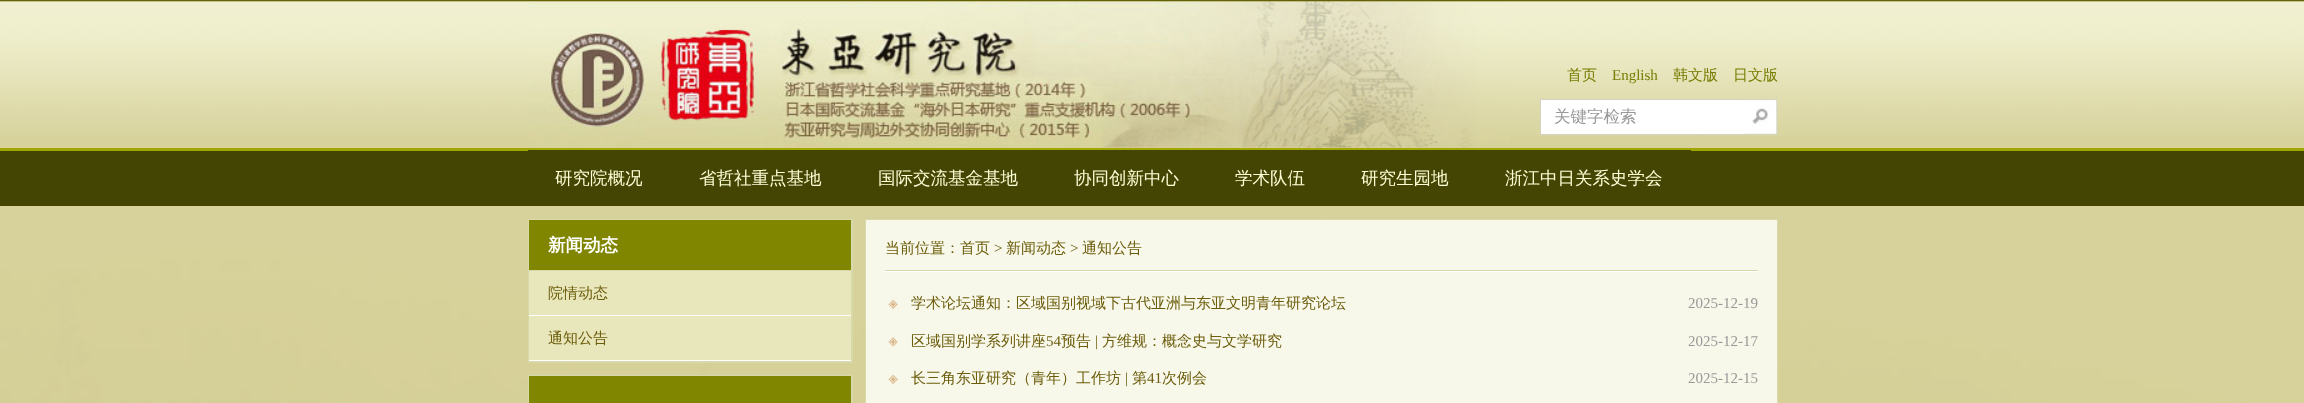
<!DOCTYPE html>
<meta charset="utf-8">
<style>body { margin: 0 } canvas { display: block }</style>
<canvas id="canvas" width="2304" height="403"></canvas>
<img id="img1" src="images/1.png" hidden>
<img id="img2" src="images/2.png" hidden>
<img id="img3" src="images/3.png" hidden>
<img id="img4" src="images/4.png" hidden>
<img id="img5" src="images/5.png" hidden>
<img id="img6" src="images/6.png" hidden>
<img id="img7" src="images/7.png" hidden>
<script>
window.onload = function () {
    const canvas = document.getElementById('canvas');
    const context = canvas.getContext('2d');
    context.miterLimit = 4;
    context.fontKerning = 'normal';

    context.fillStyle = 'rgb(255, 255, 255)';
    context.fillRect(0, 0, 2304, 403);
    context.drawImage(document.getElementById('img1'), 0, 136, 2304, 267);
    context.drawImage(document.getElementById('img2'), 0, 0, 2304, 136);
    context.drawImage(document.getElementById('img3'), 528, 0, 675, 148);
    context.drawImage(document.getElementById('img4'), 1202, 1, 308, 147);
    context.fillRect(1541, 100, 203, 34);
    context.fillStyle = 'rgb(211, 211, 193)';
    context.fillRect(1540, 99, 204, 1);
    context.fillRect(1540, 134, 204, 1);
    context.fillRect(1540, 99, 1, 36);
    context.drawImage(document.getElementById('img5'), 1743, 98, 35, 37);
    context.fillStyle = 'rgb(68, 68, 3)';
    context.fillRect(0, 151, 2304, 55);
    context.fillStyle = 'rgb(159, 166, 1)';
    context.fillRect(0, 148, 2304, 3);
    context.fillStyle = 'rgb(68, 68, 3)';
    context.fillRect(528, 150, 1163, 1);
    context.fillStyle = 'rgb(215, 217, 168)';
    context.fillRect(528, 219, 325, 144);
    context.fillStyle = 'rgb(128, 134, 0)';
    context.fillRect(529, 220, 322, 50);
    context.fillStyle = 'rgb(232, 231, 187)';
    context.fillRect(529, 271, 322, 89);
    context.fillStyle = 'rgb(255, 255, 255)';
    context.fillRect(529, 315, 322, 1);
    context.fillRect(529, 360, 322, 1);
    context.fillStyle = 'rgb(215, 217, 168)';
    context.fillRect(528, 375, 325, 28);
    context.fillStyle = 'rgb(128, 134, 0)';
    context.fillRect(529, 376, 322, 27);
    context.fillStyle = 'rgb(247, 248, 234)';
    context.beginPath();
    context.rect(865.5, 219.5, 912, 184);
    context.fill();
    context.strokeStyle = 'rgb(215, 217, 168)';
    context.stroke();
    context.fillStyle = 'rgb(215, 217, 168)';
    context.fillRect(885, 270, 873, 1);
    context.fillStyle = 'rgb(255, 255, 255)';
    context.fillRect(885, 271, 873, 1);
    context.drawImage(document.getElementById('img6'), 888, 299, 10, 10);
    context.drawImage(document.getElementById('img7'), 888, 337, 10, 10);
    context.drawImage(document.getElementById('img6'), 888, 374, 10, 10);
    context.font = '500 15px WenQuanYi Zen Hei';
    context.fillStyle = 'rgb(119, 124, 0)';
    context.fillText('首页', 1567, 80);
    context.font = '15px Liberation Serif';
    context.fillText('English', 1612, 80);
    context.font = '500 15px WenQuanYi Zen Hei';
    context.fillText('韩文版', 1673, 80);
    context.fillText('日文版', 1733, 80);
    context.font = '500 16.5px WenQuanYi Zen Hei';
    context.fillStyle = 'rgb(153, 153, 153)';
    context.fillText('关键字检索', 1554, 122);
    context.font = '500 17.5px WenQuanYi Zen Hei';
    context.fillStyle = 'rgb(252, 254, 213)';
    context.fillText('研究院概况', 555, 184);
    context.fillText('省哲社重点基地', 699, 184);
    context.fillText('国际交流基金基地', 878, 184);
    context.fillText('协同创新中心', 1074, 184);
    context.fillText('学术队伍', 1235, 184);
    context.fillText('研究生园地', 1361, 184);
    context.fillText('浙江中日关系史学会', 1505, 184);
    context.font = 'bold 17.5px WenQuanYi Zen Hei';
    context.fillStyle = 'rgb(255, 255, 255)';
    context.fillText('新闻动态', 548, 251);
    context.font = '500 15px WenQuanYi Zen Hei';
    context.fillStyle = 'rgb(108, 92, 11)';
    context.fillText('院情动态', 548, 298);
    context.fillText('通知公告', 548, 343);
    context.fillText('当前位置：首页', 885, 253);
    context.font = '15px Liberation Serif';
    context.fillText('>', 994, 253);
    context.font = '500 15px WenQuanYi Zen Hei';
    context.fillText('新闻动态', 1006, 253);
    context.font = '15px Liberation Serif';
    context.fillText('>', 1070, 253);
    context.font = '500 15px WenQuanYi Zen Hei';
    context.fillText('通知公告', 1082, 253);
    context.fillText('学术论坛通知：区域国别视域下古代亚洲与东亚文明青年研究论坛', 911, 308);
    context.font = '15px Liberation Serif';
    context.fillStyle = 'rgb(153, 153, 153)';
    context.fillText('2025-12-19', 1688, 308);
    context.font = '500 15px WenQuanYi Zen Hei';
    context.fillStyle = 'rgb(108, 92, 11)';
    context.fillText('区域国别学系列讲座', 911, 346);
    context.font = '15px Liberation Serif';
    context.fillText('54', 1046, 346);
    context.font = '500 15px WenQuanYi Zen Hei';
    context.fillText('预告', 1061, 346);
    context.font = '15px Liberation Serif';
    context.fillText('|', 1095, 346);
    context.font = '500 15px WenQuanYi Zen Hei';
    context.fillText('方维规：概念史与文学研究', 1102, 346);
    context.font = '15px Liberation Serif';
    context.fillStyle = 'rgb(153, 153, 153)';
    context.fillText('2025-12-17', 1688, 346);
    context.font = '500 15px WenQuanYi Zen Hei';
    context.fillStyle = 'rgb(108, 92, 11)';
    context.fillText('长三角东亚研究（青年）工作坊', 911, 383);
    context.font = '15px Liberation Serif';
    context.fillText('|', 1125, 383);
    context.font = '500 15px WenQuanYi Zen Hei';
    context.fillText('第', 1132, 383);
    context.font = '15px Liberation Serif';
    context.fillText('41', 1147, 383);
    context.font = '500 15px WenQuanYi Zen Hei';
    context.fillText('次例会', 1162, 383);
    context.font = '15px Liberation Serif';
    context.fillStyle = 'rgb(153, 153, 153)';
    context.fillText('2025-12-15', 1688, 383);
};
</script>
